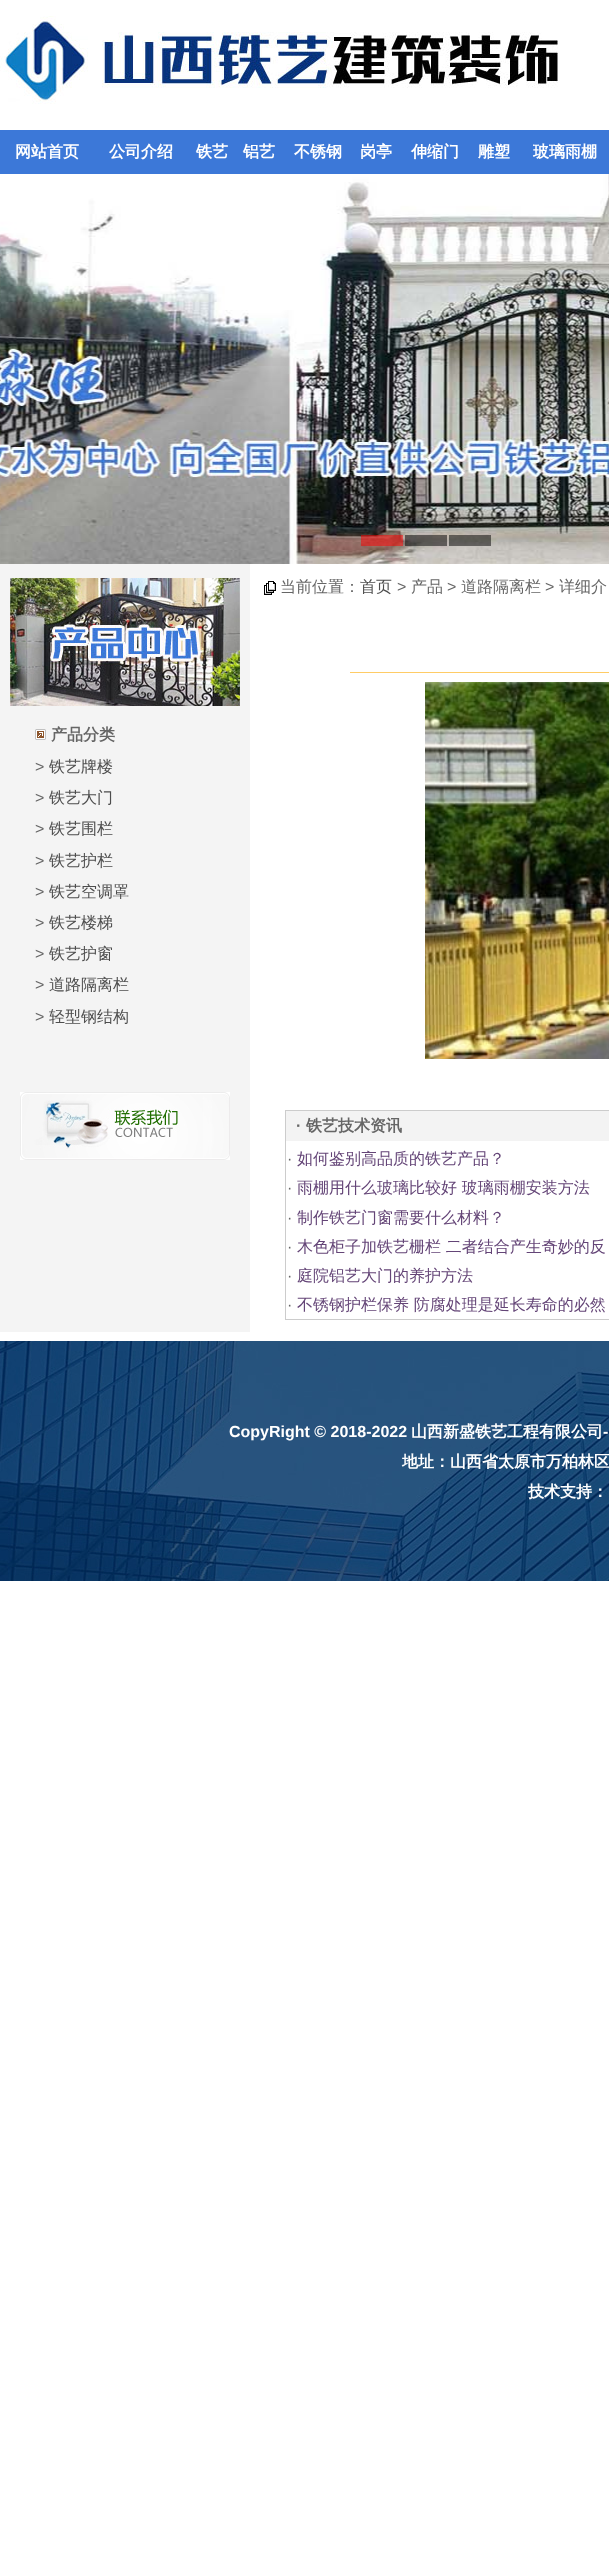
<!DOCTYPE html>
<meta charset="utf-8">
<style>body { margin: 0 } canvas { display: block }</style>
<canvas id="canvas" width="609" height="2571"></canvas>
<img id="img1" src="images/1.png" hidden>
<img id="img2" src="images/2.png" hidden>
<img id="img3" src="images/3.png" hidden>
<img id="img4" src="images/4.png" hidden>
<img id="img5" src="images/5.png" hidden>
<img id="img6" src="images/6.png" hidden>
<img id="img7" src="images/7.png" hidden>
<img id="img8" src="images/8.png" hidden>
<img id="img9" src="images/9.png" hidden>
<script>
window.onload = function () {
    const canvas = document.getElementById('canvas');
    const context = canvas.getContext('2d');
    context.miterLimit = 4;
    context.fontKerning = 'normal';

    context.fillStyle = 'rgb(255, 255, 255)';
    context.fillRect(0, 0, 609, 2571);
    context.drawImage(document.getElementById('img1'), 0, 16, 88, 88);
    context.drawImage(document.getElementById('img2'), 102, 32, 456, 56);
    context.fillStyle = 'rgb(60, 120, 216)';
    context.fillRect(0, 130, 609, 44);
    context.drawImage(document.getElementById('img3'), 0, 174, 609, 390);
    context.fillStyle = 'rgba(255, 0, 0, 0.5)';
    context.fillRect(361, 535, 42, 11);
    context.fillStyle = 'rgba(0, 0, 0, 0.5)';
    context.fillRect(405, 535, 42, 11);
    context.fillRect(449, 535, 42, 11);
    context.fillStyle = 'rgb(244, 244, 244)';
    context.fillRect(0, 564, 250, 768);
    context.drawImage(document.getElementById('img4'), 10, 578, 230, 128);
    context.drawImage(document.getElementById('img5'), 35, 729, 11, 11);
    context.drawImage(document.getElementById('img6'), 20, 1092, 210, 68);
    context.drawImage(document.getElementById('img7'), 264, 581, 12, 14);
    context.fillStyle = 'rgb(255, 204, 102)';
    context.fillRect(350, 672, 259, 1);
    context.drawImage(document.getElementById('img8'), 425, 682, 184, 377);
    context.strokeStyle = 'rgb(204, 204, 204)';
    context.strokeRect(285.5, 1110.5, 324, 209);
    context.fillStyle = 'rgb(243, 243, 243)';
    context.fillRect(286, 1111, 323, 30);
    context.drawImage(document.getElementById('img9'), 0, 1341, 609, 240);
    context.font = 'bold 16px WenQuanYi Zen Hei';
    context.fillStyle = 'rgb(255, 255, 255)';
    context.fillText('网站首页', 15, 157);
    context.fillText('公司介绍', 109, 157);
    context.fillText('铁艺', 196, 157);
    context.fillText('铝艺', 243, 157);
    context.fillText('不锈钢', 294, 157);
    context.fillText('岗亭', 360, 157);
    context.fillText('伸缩门', 411, 157);
    context.fillText('雕塑', 478, 157);
    context.fillText('玻璃雨棚', 533, 157);
    context.fillStyle = 'rgb(102, 102, 102)';
    context.fillText('产品分类', 51, 740);
    context.font = '16px Liberation Sans';
    context.fillText('>', 35, 772);
    context.font = '500 16px WenQuanYi Zen Hei';
    context.fillStyle = 'rgb(77, 77, 77)';
    context.fillText('铁艺牌楼', 49, 772);
    context.font = '16px Liberation Sans';
    context.fillStyle = 'rgb(102, 102, 102)';
    context.fillText('>', 35, 803);
    context.font = '500 16px WenQuanYi Zen Hei';
    context.fillStyle = 'rgb(77, 77, 77)';
    context.fillText('铁艺大门', 49, 803);
    context.font = '16px Liberation Sans';
    context.fillStyle = 'rgb(102, 102, 102)';
    context.fillText('>', 35, 834);
    context.font = '500 16px WenQuanYi Zen Hei';
    context.fillStyle = 'rgb(77, 77, 77)';
    context.fillText('铁艺围栏', 49, 834);
    context.font = '16px Liberation Sans';
    context.fillStyle = 'rgb(102, 102, 102)';
    context.fillText('>', 35, 866);
    context.font = '500 16px WenQuanYi Zen Hei';
    context.fillStyle = 'rgb(77, 77, 77)';
    context.fillText('铁艺护栏', 49, 866);
    context.font = '16px Liberation Sans';
    context.fillStyle = 'rgb(102, 102, 102)';
    context.fillText('>', 35, 897);
    context.font = '500 16px WenQuanYi Zen Hei';
    context.fillStyle = 'rgb(77, 77, 77)';
    context.fillText('铁艺空调罩', 49, 897);
    context.font = '16px Liberation Sans';
    context.fillStyle = 'rgb(102, 102, 102)';
    context.fillText('>', 35, 928);
    context.font = '500 16px WenQuanYi Zen Hei';
    context.fillStyle = 'rgb(77, 77, 77)';
    context.fillText('铁艺楼梯', 49, 928);
    context.font = '16px Liberation Sans';
    context.fillStyle = 'rgb(102, 102, 102)';
    context.fillText('>', 35, 959);
    context.font = '500 16px WenQuanYi Zen Hei';
    context.fillStyle = 'rgb(77, 77, 77)';
    context.fillText('铁艺护窗', 49, 959);
    context.font = '16px Liberation Sans';
    context.fillStyle = 'rgb(102, 102, 102)';
    context.fillText('>', 35, 990);
    context.font = '500 16px WenQuanYi Zen Hei';
    context.fillStyle = 'rgb(77, 77, 77)';
    context.fillText('道路隔离栏', 49, 990);
    context.font = '16px Liberation Sans';
    context.fillStyle = 'rgb(102, 102, 102)';
    context.fillText('>', 35, 1022);
    context.font = '500 16px WenQuanYi Zen Hei';
    context.fillStyle = 'rgb(77, 77, 77)';
    context.fillText('轻型钢结构', 49, 1022);
    context.fillStyle = 'rgb(102, 102, 102)';
    context.fillText('当前位置：', 280, 592);
    context.fillStyle = 'rgb(77, 77, 77)';
    context.fillText('首页', 360, 592);
    context.font = '16px Liberation Sans';
    context.fillStyle = 'rgb(102, 102, 102)';
    context.fillText('>', 397, 592);
    context.font = '500 16px WenQuanYi Zen Hei';
    context.fillText('产品', 411, 592);
    context.font = '16px Liberation Sans';
    context.fillText('>', 447, 592);
    context.font = '500 16px WenQuanYi Zen Hei';
    context.fillText('道路隔离栏', 461, 592);
    context.font = '16px Liberation Sans';
    context.fillText('>', 545, 592);
    context.font = '500 16px WenQuanYi Zen Hei';
    context.fillText('详细介', 559, 592);
    context.font = 'bold 16px Liberation Sans';
    context.fillText('·', 296, 1131);
    context.font = 'bold 16px WenQuanYi Zen Hei';
    context.fillText('铁艺技术资讯', 306, 1131);
    context.font = '16px Liberation Sans';
    context.fillText('·', 287, 1164);
    context.font = '500 16px WenQuanYi Zen Hei';
    context.fillStyle = 'rgb(100, 69, 119)';
    context.fillText('如何鉴别高品质的铁艺产品？', 297, 1164);
    context.font = '16px Liberation Sans';
    context.fillStyle = 'rgb(102, 102, 102)';
    context.fillText('·', 287, 1193);
    context.font = '500 16px WenQuanYi Zen Hei';
    context.fillStyle = 'rgb(100, 69, 119)';
    context.fillText('雨棚用什么玻璃比较好 玻璃雨棚安装方法', 297, 1193);
    context.font = '16px Liberation Sans';
    context.fillStyle = 'rgb(102, 102, 102)';
    context.fillText('·', 287, 1223);
    context.font = '500 16px WenQuanYi Zen Hei';
    context.fillStyle = 'rgb(100, 69, 119)';
    context.fillText('制作铁艺门窗需要什么材料？', 297, 1223);
    context.font = '16px Liberation Sans';
    context.fillStyle = 'rgb(102, 102, 102)';
    context.fillText('·', 287, 1252);
    context.font = '500 16px WenQuanYi Zen Hei';
    context.fillStyle = 'rgb(100, 69, 119)';
    context.fillText('木色柜子加铁艺栅栏 二者结合产生奇妙的反', 297, 1252);
    context.font = '16px Liberation Sans';
    context.fillStyle = 'rgb(102, 102, 102)';
    context.fillText('·', 287, 1281);
    context.font = '500 16px WenQuanYi Zen Hei';
    context.fillStyle = 'rgb(100, 69, 119)';
    context.fillText('庭院铝艺大门的养护方法', 297, 1281);
    context.font = '16px Liberation Sans';
    context.fillStyle = 'rgb(102, 102, 102)';
    context.fillText('·', 287, 1310);
    context.font = '500 16px WenQuanYi Zen Hei';
    context.fillStyle = 'rgb(100, 69, 119)';
    context.fillText('不锈钢护栏保养 防腐处理是延长寿命的必然', 297, 1310);
    context.font = 'bold 16px Liberation Sans';
    context.fillStyle = 'rgb(255, 255, 255)';
    context.fillText('CopyRight © 2018-2022', 229, 1437);
    context.font = 'bold 16px WenQuanYi Zen Hei';
    context.fillText('山西新盛铁艺工程有限公司', 411, 1437);
    context.font = 'bold 16px Liberation Sans';
    context.fillText('-', 603, 1437);
    context.font = 'bold 16px WenQuanYi Zen Hei';
    context.fillText('地址：山西省太原市万柏林区', 402, 1467);
    context.fillText('技术支持：', 528, 1497);
};
</script>
